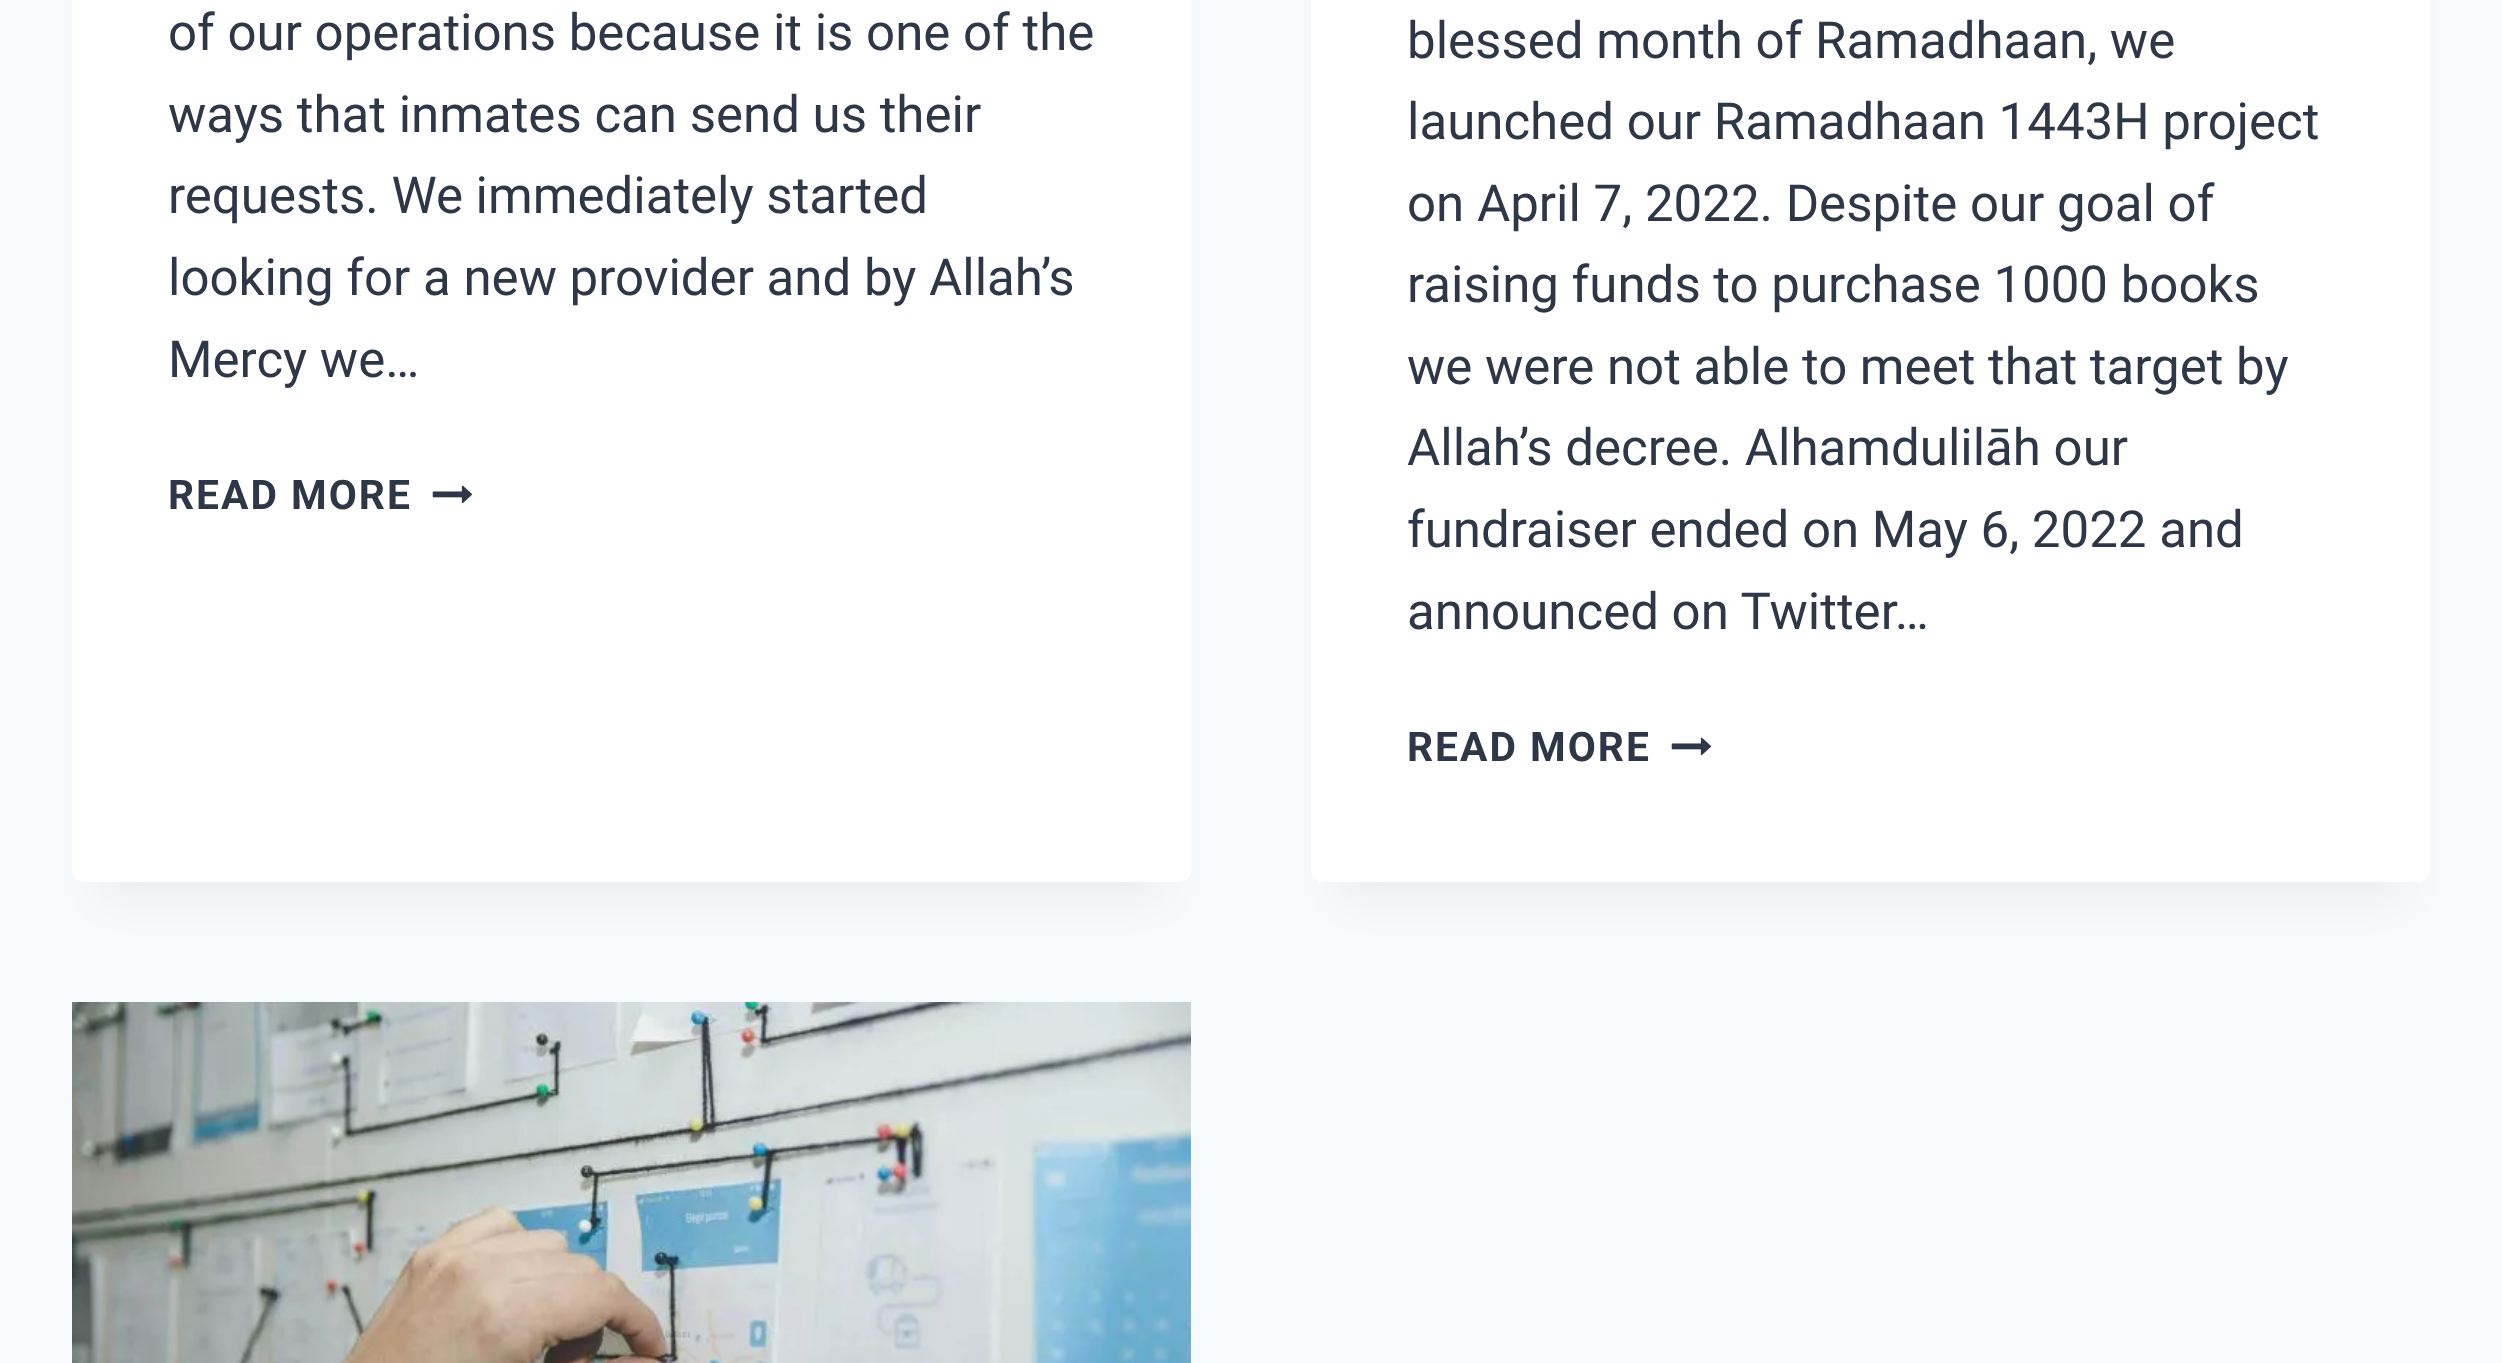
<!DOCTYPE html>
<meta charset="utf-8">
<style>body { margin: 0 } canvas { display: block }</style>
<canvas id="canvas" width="2502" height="1363"></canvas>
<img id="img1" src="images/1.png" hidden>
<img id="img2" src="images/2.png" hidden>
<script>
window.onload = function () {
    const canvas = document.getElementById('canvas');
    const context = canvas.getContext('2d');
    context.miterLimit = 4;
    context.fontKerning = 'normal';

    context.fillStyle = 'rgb(247, 250, 252)';
    context.fillRect(0, 0, 2502, 1363);
    context.fillStyle = 'rgba(0, 0, 0, 0.05)';
    context.filter = 'blur(22.5px)';
    context.beginPath();
    context.rect(102, -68, 1059, 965);
    context.fill();
    context.filter = 'none';
    context.fillStyle = 'rgb(255, 255, 255)';
    context.beginPath();
    context.roundRect(72, -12, 1119, 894, 12);
    context.fill();
    context.drawImage(document.getElementById('img1'), 432, 485, 40, 19);
    context.fillStyle = 'rgba(0, 0, 0, 0.05)';
    context.filter = 'blur(22.5px)';
    context.beginPath();
    context.rect(1341, -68, 1059, 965);
    context.fill();
    context.filter = 'none';
    context.fillStyle = 'rgb(255, 255, 255)';
    context.beginPath();
    context.roundRect(1311, -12, 1119, 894, 12);
    context.fill();
    context.drawImage(document.getElementById('img1'), 1671, 737, 40, 19);
    context.drawImage(document.getElementById('img2'), 72, 1002, 1119, 361);
    context.font = '51px Roboto';
    context.fillStyle = 'rgb(45, 55, 72)';
    context.fillText('of our operations because it is one of the', 168, 50);
    context.fillText('ways that inmates can send us their', 168, 132);
    context.fillText('requests. We immediately started', 168, 213);
    context.fillText('looking for a new provider and by Allah’s', 168, 295);
    context.fillText('Mercy we…', 168, 377);
    context.letterSpacing = '2px';
    context.font = 'bold 40.75px Roboto';
    context.fillText('READ MORE', 168, 509);
    context.letterSpacing = '0px';
    context.font = '51px Roboto';
    context.fillText('blessed month of Ramadhaan, we', 1407, 58);
    context.fillText('launched our Ramadhaan 1443H project', 1407, 139);
    context.fillText('on April 7, 2022. Despite our goal of', 1407, 221);
    context.fillText('raising funds to purchase 1000 books', 1407, 302);
    context.fillText('we were not able to meet that target by', 1407, 384);
    context.fillText('Allah’s decree. Alhamdulilāh our', 1407, 465);
    context.fillText('fundraiser ended on May 6, 2022 and', 1407, 547);
    context.fillText('announced on Twitter…', 1407, 629);
    context.letterSpacing = '2px';
    context.font = 'bold 40.75px Roboto';
    context.fillText('READ MORE', 1407, 761);
};
</script>
